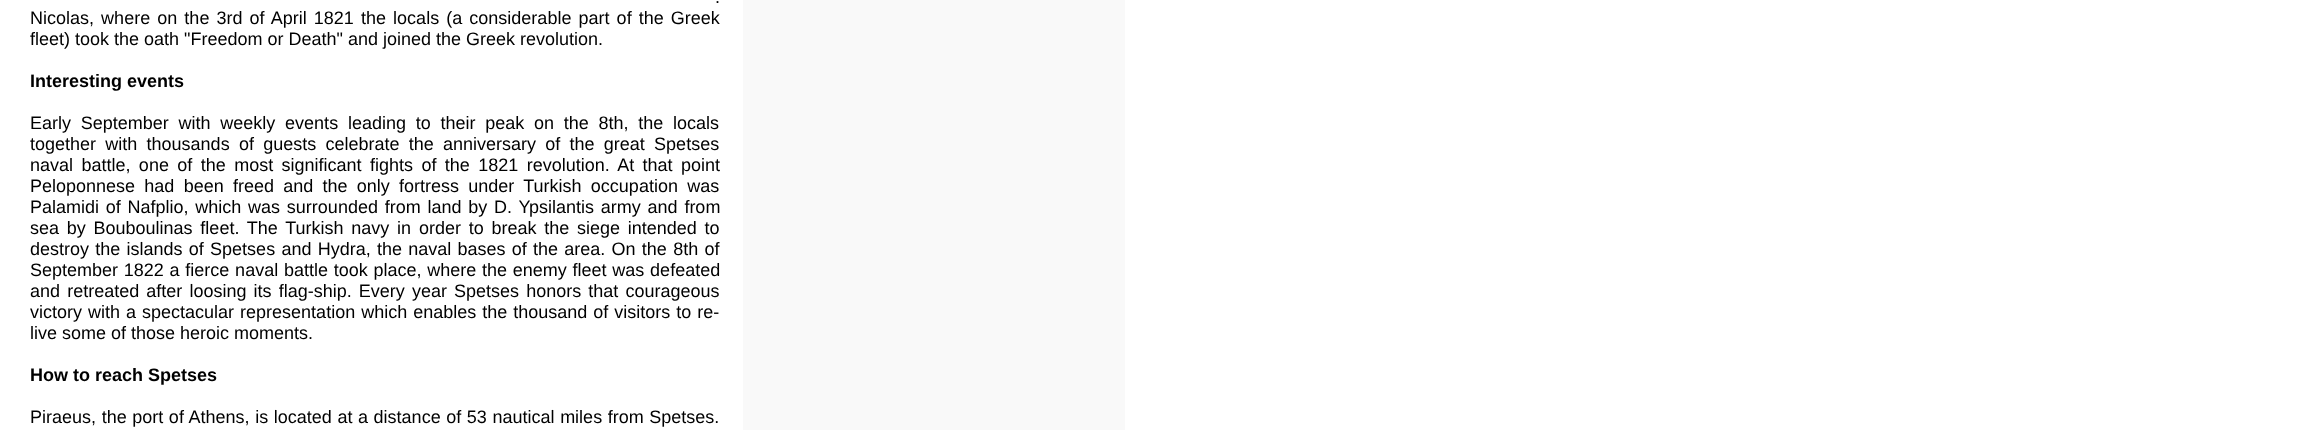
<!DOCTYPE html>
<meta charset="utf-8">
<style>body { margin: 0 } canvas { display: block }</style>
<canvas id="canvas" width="2304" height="430"></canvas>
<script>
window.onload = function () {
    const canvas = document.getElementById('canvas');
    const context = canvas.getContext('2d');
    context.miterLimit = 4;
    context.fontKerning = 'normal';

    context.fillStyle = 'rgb(255, 255, 255)';
    context.fillRect(0, 0, 2304, 430);
    context.fillStyle = 'rgb(249, 249, 249)';
    context.fillRect(743, 0, 382, 430);
    context.wordSpacing = '6px';
    context.font = '18px Liberation Sans';
    context.fillStyle = 'rgb(0, 0, 0)';
    context.fillText('.', 715, 3);
    context.wordSpacing = '2.1px';
    context.fillText('Nicolas, where on the 3rd of April 1821 the locals (a considerable part of the Greek', 30, 24);
    context.wordSpacing = '0px';
    context.fillText('fleet) took the oath "Freedom or Death" and joined the Greek revolution.', 30, 45);
    context.font = 'bold 18px Liberation Sans';
    context.fillText('Interesting events', 30, 87);
    context.wordSpacing = '4.75px';
    context.font = '18px Liberation Sans';
    context.fillText('Early September with weekly events leading to their peak on the 8th, the locals', 30, 129);
    context.wordSpacing = '4.25px';
    context.fillText('together with thousands of guests celebrate the anniversary of the great Spetses', 30, 150);
    context.wordSpacing = '3.4px';
    context.fillText('naval battle, one of the most significant fights of the 1821 revolution. At that point', 30, 171);
    context.wordSpacing = '4.25px';
    context.fillText('Peloponnese had been freed and the only fortress under Turkish occupation was', 30, 192);
    context.wordSpacing = '1.75px';
    context.fillText('Palamidi of Nafplio, which was surrounded from land by D. Ypsilantis army and from', 30, 213);
    context.wordSpacing = '2.75px';
    context.fillText('sea by Bouboulinas fleet. The Turkish navy in order to break the siege intended to', 30, 234);
    context.wordSpacing = '1.25px';
    context.fillText('destroy the islands of Spetses and Hydra, the naval bases of the area. On the 8th of', 30, 255);
    context.wordSpacing = '0.75px';
    context.fillText('September 1822 a fierce naval battle took place, where the enemy fleet was defeated', 30, 276);
    context.wordSpacing = '2.1px';
    context.fillText('and retreated after loosing its flag-ship. Every year Spetses honors that courageous', 30, 297);
    context.wordSpacing = '1px';
    context.fillText('victory with a spectacular representation which enables the thousand of visitors to re-', 30, 318);
    context.wordSpacing = '0px';
    context.fillText('live some of those heroic moments.', 30, 339);
    context.font = 'bold 18px Liberation Sans';
    context.fillText('How to reach Spetses', 30, 381);
    context.wordSpacing = '0.6px';
    context.font = '18px Liberation Sans';
    context.fillText('Piraeus, the port of Athens, is located at a distance of 53 nautical miles from Spetses.', 30, 423);
};
</script>
